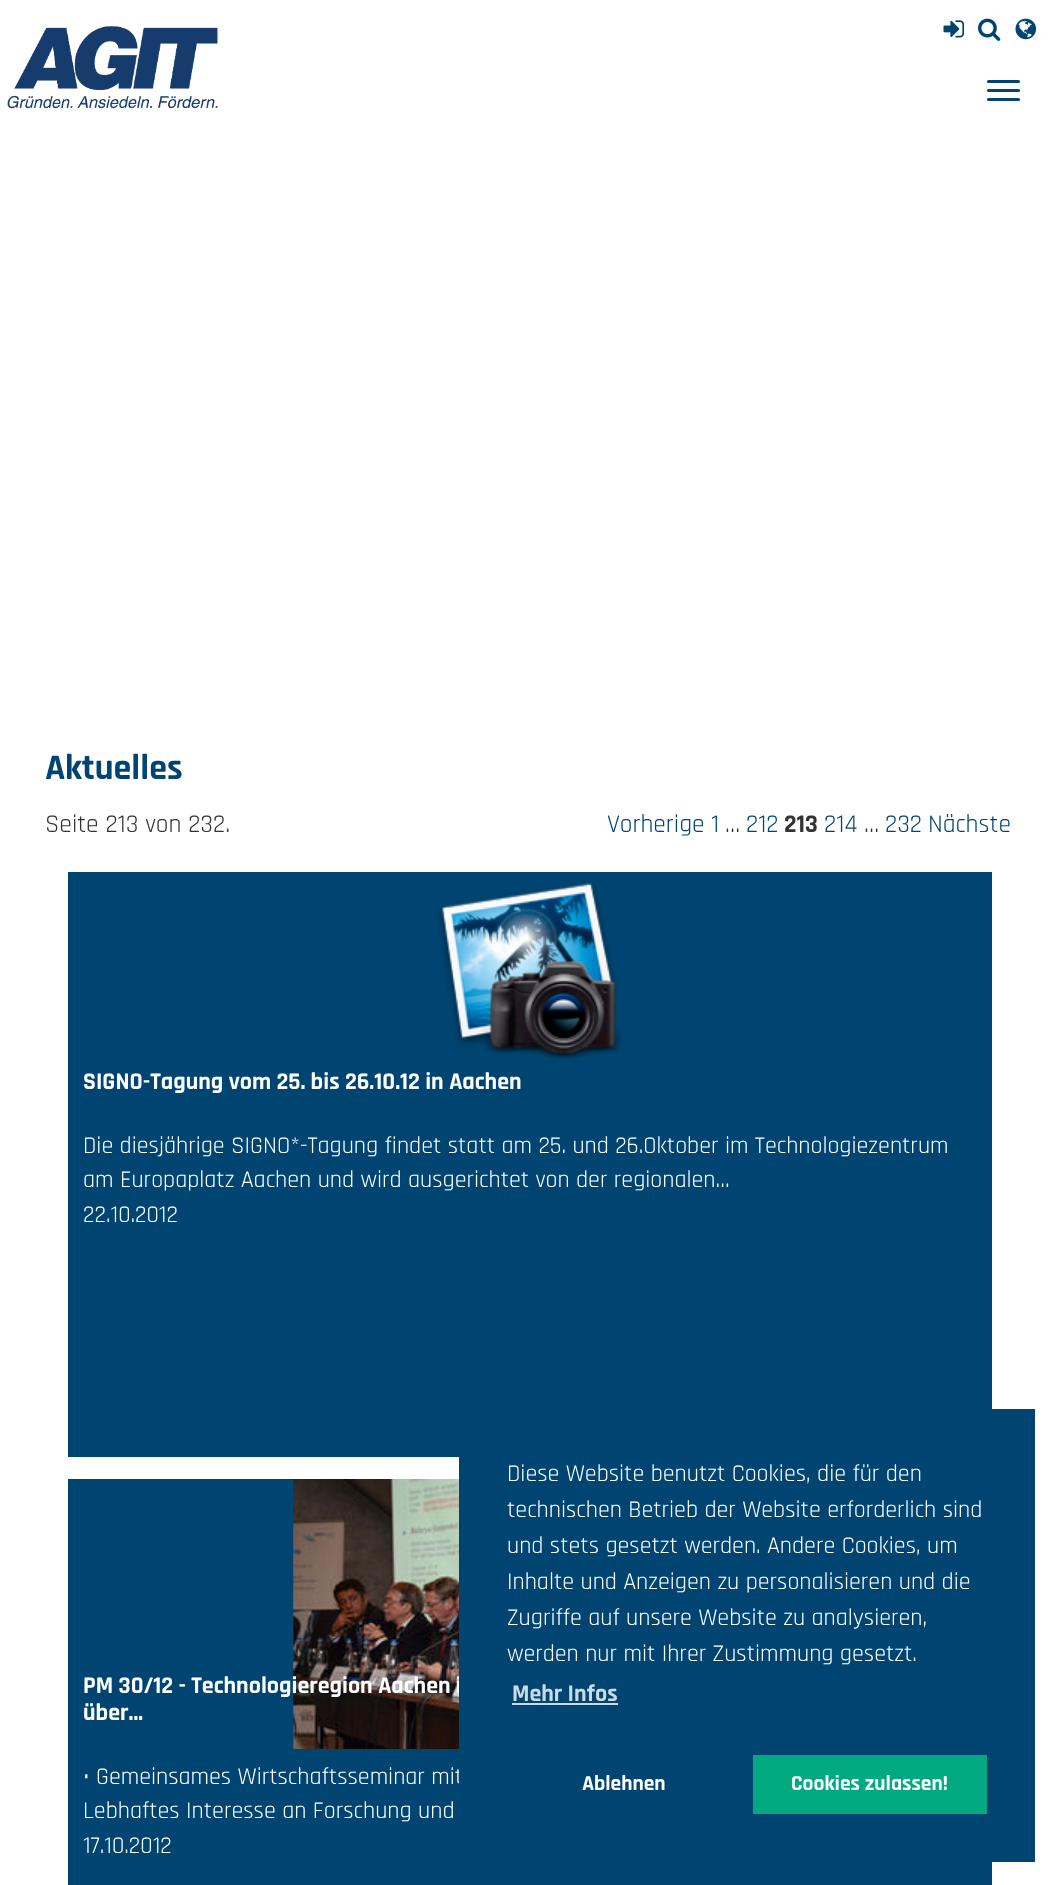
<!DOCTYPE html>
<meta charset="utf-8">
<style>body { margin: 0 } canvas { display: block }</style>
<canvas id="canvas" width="1059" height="1885"></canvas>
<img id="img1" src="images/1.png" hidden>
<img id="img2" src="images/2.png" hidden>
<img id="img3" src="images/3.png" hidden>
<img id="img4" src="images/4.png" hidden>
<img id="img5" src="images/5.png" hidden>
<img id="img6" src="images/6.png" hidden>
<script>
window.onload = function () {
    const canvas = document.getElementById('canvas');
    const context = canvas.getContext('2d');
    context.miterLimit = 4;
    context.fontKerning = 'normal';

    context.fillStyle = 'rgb(255, 255, 255)';
    context.fillRect(0, 0, 1059, 1885);
    context.drawImage(document.getElementById('img1'), 943, 20, 22, 18);
    context.drawImage(document.getElementById('img2'), 978, 18, 23, 23);
    context.drawImage(document.getElementById('img3'), 1015, 18, 22, 22);
    context.drawImage(document.getElementById('img4'), 7, 26, 211, 83);
    context.fillStyle = 'rgb(0, 69, 113)';
    context.beginPath();
    context.roundRect(987, 80, 33, 3, 1.5);
    context.fill();
    context.beginPath();
    context.roundRect(987, 89, 33, 3, 1.5);
    context.fill();
    context.beginPath();
    context.roundRect(987, 98, 33, 3, 1.5);
    context.fill();
    context.fillRect(68, 872, 924, 585);
    context.drawImage(document.getElementById('img5'), 437, 883, 185, 176);
    context.fillRect(68, 1479, 924, 406);
    context.drawImage(document.getElementById('img6'), 293, 1479, 166, 270);
    context.font = 'bold 36px Rajdhani';
    context.fillText('Aktuelles', 45, 779);
    context.font = '25.5px Rajdhani';
    context.fillStyle = 'rgb(51, 51, 51)';
    context.fillText('Seite 213 von 232.', 45, 832);
    context.fillStyle = 'rgb(0, 69, 113)';
    context.fillText('Vorherige', 607, 832);
    context.fillText('1', 711, 832);
    context.fillStyle = 'rgb(51, 51, 51)';
    context.fillText('…', 725, 832);
    context.fillStyle = 'rgb(0, 69, 113)';
    context.fillText('212', 746, 832);
    context.font = 'bold 25.5px Rajdhani';
    context.fillStyle = 'rgb(51, 51, 51)';
    context.fillText('213', 784, 832);
    context.font = '25.5px Rajdhani';
    context.fillStyle = 'rgb(0, 69, 113)';
    context.fillText('214', 824, 832);
    context.fillStyle = 'rgb(51, 51, 51)';
    context.fillText('…', 864, 832);
    context.fillStyle = 'rgb(0, 69, 113)';
    context.fillText('232', 885, 832);
    context.fillText('Nächste', 928, 832);
    context.font = 'bold 24px Rajdhani';
    context.fillStyle = 'rgb(255, 255, 255)';
    context.fillText('SIGNO-Tagung vom 25. bis 26.10.12 in Aachen', 83, 1089);
    context.font = '24px Rajdhani';
    context.fillText('Die diesjährige SIGNO*-Tagung findet statt am 25. und 26.Oktober im Technologiezentrum', 83, 1153);
    context.fillText('am Europaplatz Aachen und wird ausgerichtet von der regionalen…', 83, 1187);
    context.fillText('22.10.2012', 83, 1222);
    context.font = 'bold 24px Rajdhani';
    context.fillText('PM 30/12 - Technologieregion Aachen i', 83, 1693);
    context.fillText('über…', 83, 1720);
    context.font = '24px Rajdhani';
    context.fillText('• Gemeinsames Wirtschaftsseminar mit', 83, 1784);
    context.fillText('Lebhaftes Interesse an Forschung und', 83, 1818);
    context.fillText('17.10.2012', 83, 1853);
    context.fillStyle = 'rgb(0, 69, 113)';
    context.fillRect(459, 1409, 576, 453);
    context.fillStyle = 'rgb(255, 255, 255)';
    context.fillText('Diese Website benutzt Cookies, die für den', 507, 1481);
    context.fillText('technischen Betrieb der Website erforderlich sind', 507, 1517);
    context.fillText('und stets gesetzt werden. Andere Cookies, um', 507, 1553);
    context.fillText('Inhalte und Anzeigen zu personalisieren und die', 507, 1589);
    context.fillText('Zugriffe auf unsere Website zu analysieren,', 507, 1625);
    context.fillText('werden nur mit Ihrer Zustimmung gesetzt.', 507, 1661);
    context.font = 'bold 24px Rajdhani';
    context.fillStyle = 'rgb(204, 218, 227)';
    context.fillText('Mehr Infos', 512, 1701);
    context.fillRect(512, 1703, 106, 2);
    context.font = 'bold 21.5px Rajdhani';
    context.fillStyle = 'rgb(255, 255, 255)';
    context.fillText('Ablehnen', 582, 1790);
    context.fillStyle = 'rgb(0, 169, 128)';
    context.fillRect(753, 1755, 234, 59);
    context.fillStyle = 'rgb(255, 255, 255)';
    context.fillText('Cookies zulassen!', 791, 1790);
};
</script>
